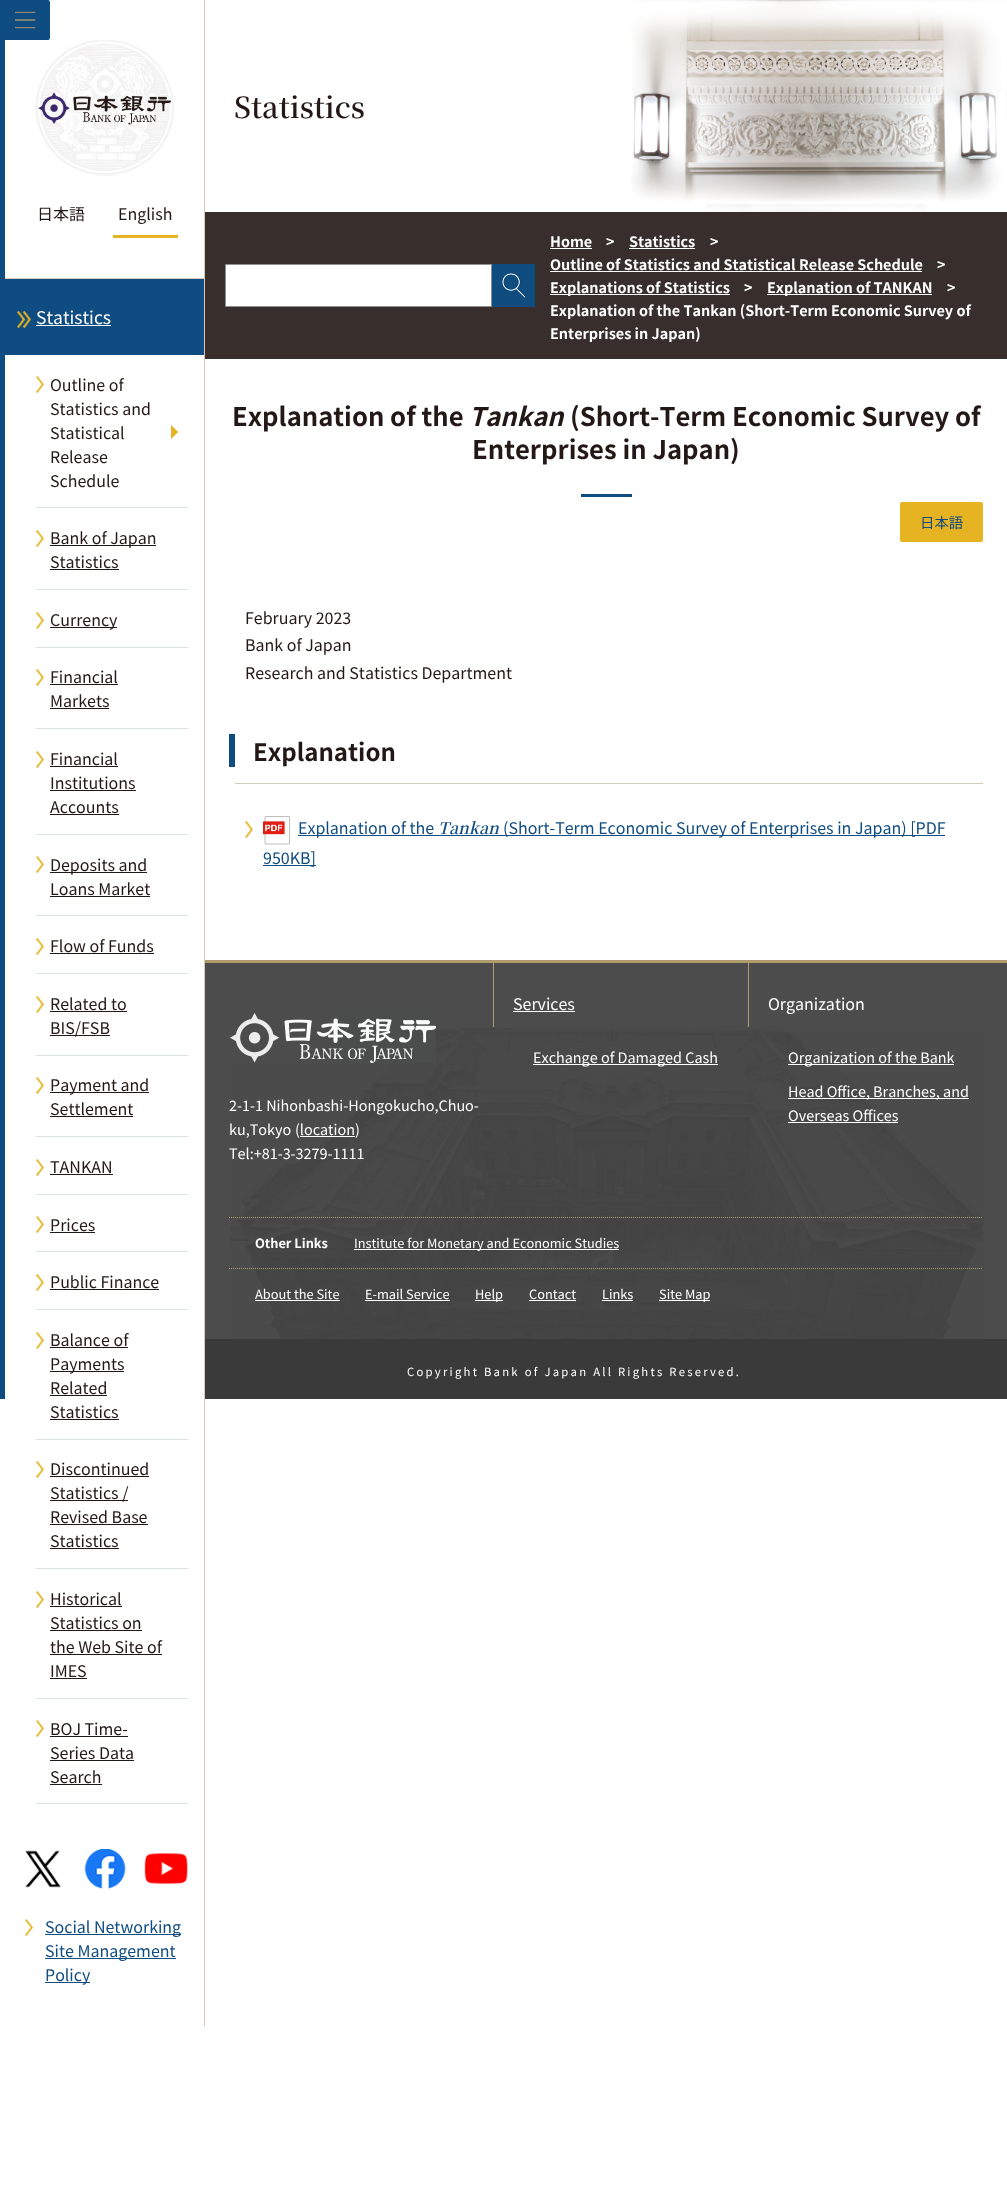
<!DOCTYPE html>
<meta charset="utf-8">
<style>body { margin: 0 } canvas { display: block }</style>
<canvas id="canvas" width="1007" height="2194"></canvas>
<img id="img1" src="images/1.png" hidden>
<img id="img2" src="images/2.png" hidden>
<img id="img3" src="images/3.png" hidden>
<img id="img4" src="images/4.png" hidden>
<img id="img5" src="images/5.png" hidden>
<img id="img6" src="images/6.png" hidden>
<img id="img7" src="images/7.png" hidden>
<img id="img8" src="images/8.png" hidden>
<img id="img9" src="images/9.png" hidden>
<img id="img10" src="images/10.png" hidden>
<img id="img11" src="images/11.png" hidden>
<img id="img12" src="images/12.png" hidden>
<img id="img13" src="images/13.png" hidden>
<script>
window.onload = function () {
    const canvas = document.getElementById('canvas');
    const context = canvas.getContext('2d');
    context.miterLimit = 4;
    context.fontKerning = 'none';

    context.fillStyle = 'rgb(255, 255, 255)';
    context.fillRect(0, 0, 1007, 2194);
    context.fillStyle = 'rgb(15, 76, 129)';
    context.fillRect(0, 40, 5, 1359);
    context.beginPath();
    context.roundRect(0, 0, 50, 40, [0, 2, 2, 0]);
    context.fill();
    context.drawImage(document.getElementById('img1'), 15, 11, 21, 18);
    context.fillStyle = 'rgb(214, 203, 185)';
    context.fillRect(204, 0, 1, 2026);
    context.drawImage(document.getElementById('img2'), 35, 40, 139, 136);
    context.fillStyle = 'rgb(230, 180, 34)';
    context.fillRect(113, 235, 65, 3);
    context.fillStyle = 'rgb(15, 76, 129)';
    context.fillRect(5, 279, 199, 76);
    context.drawImage(document.getElementById('img3'), 17, 311, 14, 17);
    context.fillStyle = 'rgb(214, 203, 185)';
    context.fillRect(5, 278, 199, 1);
    context.fillStyle = 'rgb(255, 255, 255)';
    context.fillRect(36, 325, 75, 1);
    context.drawImage(document.getElementById('img4'), 36, 376, 142, 63);
    context.fillStyle = 'rgb(219, 226, 232)';
    context.fillRect(36, 507, 152, 1);
    context.drawImage(document.getElementById('img5'), 36, 530, 8, 17);
    context.fillStyle = 'rgb(35, 24, 21)';
    context.fillRect(50, 545, 106, 1);
    context.fillRect(50, 569, 69, 1);
    context.fillStyle = 'rgb(219, 226, 232)';
    context.fillRect(36, 589, 152, 1);
    context.drawImage(document.getElementById('img5'), 36, 612, 8, 17);
    context.fillStyle = 'rgb(35, 24, 21)';
    context.fillRect(50, 627, 67, 1);
    context.fillStyle = 'rgb(219, 226, 232)';
    context.fillRect(36, 647, 152, 1);
    context.drawImage(document.getElementById('img5'), 36, 669, 8, 17);
    context.fillStyle = 'rgb(35, 24, 21)';
    context.fillRect(50, 684, 68, 1);
    context.fillRect(50, 708, 59, 1);
    context.fillStyle = 'rgb(219, 226, 232)';
    context.fillRect(36, 728, 152, 1);
    context.drawImage(document.getElementById('img5'), 36, 751, 8, 17);
    context.fillStyle = 'rgb(35, 24, 21)';
    context.fillRect(50, 766, 68, 1);
    context.fillRect(50, 790, 86, 1);
    context.fillRect(50, 814, 69, 1);
    context.fillStyle = 'rgb(219, 226, 232)';
    context.fillRect(36, 834, 152, 1);
    context.drawImage(document.getElementById('img5'), 36, 856, 8, 17);
    context.fillStyle = 'rgb(35, 24, 21)';
    context.fillRect(50, 872, 97, 1);
    context.fillRect(50, 896, 100, 1);
    context.fillStyle = 'rgb(219, 226, 232)';
    context.fillRect(36, 915, 152, 1);
    context.drawImage(document.getElementById('img5'), 36, 938, 8, 17);
    context.fillStyle = 'rgb(35, 24, 21)';
    context.fillRect(50, 953, 104, 1);
    context.fillStyle = 'rgb(219, 226, 232)';
    context.fillRect(36, 973, 152, 1);
    context.drawImage(document.getElementById('img5'), 36, 996, 8, 17);
    context.fillStyle = 'rgb(35, 24, 21)';
    context.fillRect(50, 1011, 77, 1);
    context.fillRect(50, 1035, 60, 1);
    context.fillStyle = 'rgb(219, 226, 232)';
    context.fillRect(36, 1055, 152, 1);
    context.drawImage(document.getElementById('img5'), 36, 1077, 8, 17);
    context.fillStyle = 'rgb(35, 24, 21)';
    context.fillRect(50, 1092, 99, 1);
    context.fillRect(50, 1116, 83, 1);
    context.fillStyle = 'rgb(219, 226, 232)';
    context.fillRect(36, 1136, 152, 1);
    context.drawImage(document.getElementById('img5'), 36, 1159, 8, 17);
    context.fillStyle = 'rgb(35, 24, 21)';
    context.fillRect(50, 1174, 63, 1);
    context.fillStyle = 'rgb(219, 226, 232)';
    context.fillRect(36, 1194, 152, 1);
    context.drawImage(document.getElementById('img5'), 36, 1216, 8, 17);
    context.fillStyle = 'rgb(35, 24, 21)';
    context.fillRect(50, 1232, 45, 1);
    context.fillStyle = 'rgb(219, 226, 232)';
    context.fillRect(36, 1251, 152, 1);
    context.drawImage(document.getElementById('img5'), 36, 1274, 8, 17);
    context.fillStyle = 'rgb(35, 24, 21)';
    context.fillRect(50, 1289, 109, 1);
    context.fillStyle = 'rgb(219, 226, 232)';
    context.fillRect(36, 1309, 152, 1);
    context.drawImage(document.getElementById('img5'), 36, 1332, 8, 17);
    context.fillStyle = 'rgb(35, 24, 21)';
    context.fillRect(50, 1347, 78, 1);
    context.fillRect(50, 1371, 74, 1);
    context.fillRect(50, 1395, 57, 1);
    context.fillRect(50, 1419, 69, 1);
    context.fillStyle = 'rgb(219, 226, 232)';
    context.fillRect(36, 1439, 152, 1);
    context.drawImage(document.getElementById('img5'), 36, 1461, 8, 17);
    context.fillStyle = 'rgb(35, 24, 21)';
    context.fillRect(50, 1476, 99, 1);
    context.fillRect(50, 1500, 78, 1);
    context.fillRect(50, 1524, 98, 1);
    context.fillRect(50, 1548, 69, 1);
    context.fillStyle = 'rgb(219, 226, 232)';
    context.fillRect(36, 1568, 152, 1);
    context.drawImage(document.getElementById('img5'), 36, 1591, 8, 17);
    context.fillStyle = 'rgb(35, 24, 21)';
    context.fillRect(50, 1606, 72, 1);
    context.fillRect(50, 1630, 92, 1);
    context.fillRect(50, 1654, 112, 1);
    context.fillRect(50, 1678, 37, 1);
    context.fillStyle = 'rgb(219, 226, 232)';
    context.fillRect(36, 1698, 152, 1);
    context.drawImage(document.getElementById('img5'), 36, 1720, 8, 17);
    context.fillStyle = 'rgb(35, 24, 21)';
    context.fillRect(50, 1736, 78, 1);
    context.fillRect(50, 1760, 84, 1);
    context.fillRect(50, 1784, 52, 1);
    context.fillStyle = 'rgb(219, 226, 232)';
    context.fillRect(36, 1803, 152, 1);
    context.drawImage(document.getElementById('img6'), 25, 1850, 36, 38);
    context.drawImage(document.getElementById('img7'), 84, 1849, 42, 40);
    context.drawImage(document.getElementById('img8'), 144, 1853, 44, 31);
    context.drawImage(document.getElementById('img5'), 25, 1919, 8, 17);
    context.fillStyle = 'rgb(15, 76, 129)';
    context.fillRect(45, 1934, 136, 1);
    context.fillRect(45, 1958, 131, 1);
    context.fillRect(45, 1982, 45, 1);
    context.drawImage(document.getElementById('img9'), 631, 0, 376, 212);
    context.fillStyle = 'rgb(56, 47, 44)';
    context.fillRect(205, 212, 802, 147);
    context.fillStyle = 'rgb(255, 255, 255)';
    context.beginPath();
    context.rect(225.5, 264.5, 266, 42);
    context.fill();
    context.strokeStyle = 'rgb(143, 143, 143)';
    context.stroke();
    context.drawImage(document.getElementById('img10'), 492, 264, 43, 43);
    context.fillRect(550, 248, 42, 1);
    context.fillRect(629, 248, 66, 1);
    context.fillRect(550, 271, 372, 1);
    context.fillRect(550, 294, 180, 1);
    context.fillRect(767, 294, 165, 1);
    context.fillStyle = 'rgb(15, 76, 129)';
    context.fillRect(581, 494, 51, 3);
    context.fillStyle = 'rgb(230, 180, 34)';
    context.beginPath();
    context.roundRect(900, 502, 83, 40, 2);
    context.fill();
    context.fillStyle = 'rgb(15, 76, 129)';
    context.fillRect(229, 734, 6, 33);
    context.fillStyle = 'rgb(214, 203, 185)';
    context.fillRect(235, 783, 748, 1);
    context.drawImage(document.getElementById('img5'), 245, 821, 8, 17);
    context.drawImage(document.getElementById('img11'), 263, 816, 27, 29);
    context.fillStyle = 'rgb(15, 76, 129)';
    context.fillRect(298, 835, 647, 1);
    context.fillRect(263, 865, 53, 1);
    context.fillStyle = 'rgb(76, 76, 76)';
    context.fillRect(205, 963, 802, 376);
    context.drawImage(document.getElementById('img12'), 230, 1028, 754, 311);
    context.fillStyle = 'rgb(175, 155, 107)';
    context.fillRect(205, 960, 802, 3);
    context.fillRect(493, 963, 1, 64);
    context.fillStyle = 'rgb(255, 255, 255)';
    context.fillRect(513, 1011, 62, 1);
    context.fillRect(533, 1064, 185, 1);
    context.fillStyle = 'rgb(175, 155, 107)';
    context.fillRect(748, 963, 1, 64);
    context.fillStyle = 'rgb(255, 255, 255)';
    context.fillRect(788, 1064, 166, 1);
    context.fillRect(788, 1098, 181, 1);
    context.fillRect(788, 1122, 110, 1);
    context.drawImage(document.getElementById('img13'), 230, 1013, 206, 50);
    context.fillRect(300, 1136, 55, 1);
    context.beginPath();
    context.moveTo(229, 1217.5);
    context.lineTo(983, 1217.5);
    context.strokeStyle = 'rgb(175, 155, 107)';
    context.setLineDash([1, 1]);
    context.stroke();
    context.fillRect(354, 1249, 265, 1);
    context.beginPath();
    context.moveTo(229, 1268.5);
    context.lineTo(983, 1268.5);
    context.stroke();
    context.fillRect(255, 1300, 85, 1);
    context.fillRect(365, 1300, 85, 1);
    context.fillRect(475, 1300, 28, 1);
    context.fillRect(529, 1300, 47, 1);
    context.fillRect(602, 1300, 31, 1);
    context.fillRect(659, 1300, 51, 1);
    context.fillStyle = 'rgb(58, 58, 58)';
    context.fillRect(205, 1339, 802, 60);
    context.font = '16px Noto Sans JP';
    context.fillStyle = 'rgb(35, 24, 21)';
    context.fillText('日本語', 37, 220);
    context.fillText('English', 118, 220);
    context.font = '17.5px Noto Sans JP';
    context.fillStyle = 'rgb(255, 255, 255)';
    context.fillText('Statistics', 36, 324);
    context.font = '16px Noto Sans JP';
    context.fillStyle = 'rgb(35, 24, 21)';
    context.fillText('Outline of', 50, 391);
    context.fillText('Statistics and', 50, 415);
    context.fillText('Statistical', 50, 439);
    context.fillText('Release', 50, 463);
    context.fillText('Schedule', 50, 487);
    context.fillText('Bank of Japan', 50, 544);
    context.fillText('Statistics', 50, 568);
    context.fillText('Currency', 50, 626);
    context.fillText('Financial', 50, 683);
    context.fillText('Markets', 50, 707);
    context.fillText('Financial', 50, 765);
    context.fillText('Institutions', 50, 789);
    context.fillText('Accounts', 50, 813);
    context.fillText('Deposits and', 50, 871);
    context.fillText('Loans Market', 50, 895);
    context.fillText('Flow of Funds', 50, 952);
    context.fillText('Related to', 50, 1010);
    context.fillText('BIS/FSB', 50, 1034);
    context.fillText('Payment and', 50, 1091);
    context.fillText('Settlement', 50, 1115);
    context.fillText('TANKAN', 50, 1173);
    context.fillText('Prices', 50, 1231);
    context.fillText('Public Finance', 50, 1288);
    context.fillText('Balance of', 50, 1346);
    context.fillText('Payments', 50, 1370);
    context.fillText('Related', 50, 1394);
    context.fillText('Statistics', 50, 1418);
    context.fillText('Discontinued', 50, 1475);
    context.fillText('Statistics /', 50, 1499);
    context.fillText('Revised Base', 50, 1523);
    context.fillText('Statistics', 50, 1547);
    context.fillText('Historical', 50, 1605);
    context.fillText('Statistics on', 50, 1629);
    context.fillText('the Web Site of', 50, 1653);
    context.fillText('IMES', 50, 1677);
    context.fillText('BOJ Time-', 50, 1735);
    context.fillText('Series Data', 50, 1759);
    context.fillText('Search', 50, 1783);
    context.fillStyle = 'rgb(15, 76, 129)';
    context.fillText('Social Networking', 45, 1933);
    context.fillText('Site Management', 45, 1957);
    context.fillText('Policy', 45, 1981);
    context.font = '200 29px Noto Serif JP';
    context.fillStyle = 'rgb(35, 24, 21)';
    context.fillText('Statistics', 234, 118);
    context.font = 'bold 14.4px Noto Sans JP';
    context.fillStyle = 'rgb(255, 255, 255)';
    context.fillText('Home', 550, 247);
    context.fillText('>', 606, 247);
    context.fillText('Statistics', 629, 247);
    context.fillText('>', 710, 247);
    context.fillText('Outline of Statistics and Statistical', 550, 270);
    context.fillText('Release Schedule', 799, 270);
    context.fillText('>', 937, 270);
    context.fillText('Explanations of Statistics', 550, 293);
    context.fillText('>', 744, 293);
    context.fillText('Explanation of TANKAN', 767, 293);
    context.fillText('>', 947, 293);
    context.fillText('Explanation of the Tankan (Short-Term', 550, 316);
    context.fillText('Economic Survey of', 831, 316);
    context.fillText('Enterprises in Japan)', 550, 339);
    context.font = 'bold 25.6px Noto Sans JP';
    context.fillStyle = 'rgb(35, 24, 21)';
    context.fillText('Explanation of the', 232, 426);
    context.font = 'italic bold 25.6px Noto Sans JP';
    context.fillText('Tankan', 469, 426);
    context.font = 'bold 25.6px Noto Sans JP';
    context.fillText('(Short-Term', 570, 426);
    context.fillText('Economic Survey of', 732, 426);
    context.fillText('Enterprises in Japan)', 472, 459);
    context.font = '14.4px Noto Sans JP';
    context.fillStyle = 'rgb(15, 76, 129)';
    context.fillText('日本語', 920, 528);
    context.font = '16px Noto Sans JP';
    context.fillStyle = 'rgb(35, 24, 21)';
    context.fillText('February 2023', 245, 624);
    context.fillText('Bank of Japan', 245, 651);
    context.fillText('Research and Statistics Department', 245, 679);
    context.font = 'bold 24px Noto Sans JP';
    context.fillText('Explanation', 253, 761);
    context.font = '16px Noto Sans JP';
    context.fillStyle = 'rgb(15, 76, 129)';
    context.fillText('Explanation of the', 298, 834);
    context.font = 'italic 200 16px Noto Serif JP';
    context.fillText('Tankan', 438, 834);
    context.font = '16px Noto Sans JP';
    context.fillText('(Short-Term Economic Survey of Enterprises in Japan) [PDF', 503, 834);
    context.fillText('950KB]', 263, 864);
    context.fillStyle = 'rgb(255, 255, 255)';
    context.fillText('Services', 513, 1010);
    context.font = '14.4px Noto Sans JP';
    context.fillText('Exchange of Damaged Cash', 533, 1063);
    context.font = '16px Noto Sans JP';
    context.fillText('Organization', 768, 1010);
    context.font = '14.4px Noto Sans JP';
    context.fillText('Organization of the Bank', 788, 1063);
    context.fillText('Head Office, Branches, and', 788, 1097);
    context.fillText('Overseas Offices', 788, 1121);
    context.fillText('2-1-1 Nihonbashi-Hongokucho,Chuo-', 229, 1111);
    context.fillText('ku,Tokyo', 229, 1135);
    context.fillText('(location)', 295, 1135);
    context.fillText('Tel:+81-3-3279-1111', 229, 1159);
    context.font = 'bold 12.8px Noto Sans JP';
    context.fillText('Other Links', 255, 1248);
    context.font = '12.8px Noto Sans JP';
    context.fillText('Institute for Monetary and Economic Studies', 354, 1248);
    context.fillText('About the Site', 255, 1299);
    context.fillText('E-mail Service', 365, 1299);
    context.fillText('Help', 475, 1299);
    context.fillText('Contact', 529, 1299);
    context.fillText('Links', 602, 1299);
    context.fillText('Site Map', 659, 1299);
    context.letterSpacing = '2.25px';
    context.font = '11.3px Noto Sans JP';
    context.fillText('Copyright Bank of Japan All Rights Reserved.', 407, 1376);
};
</script>
